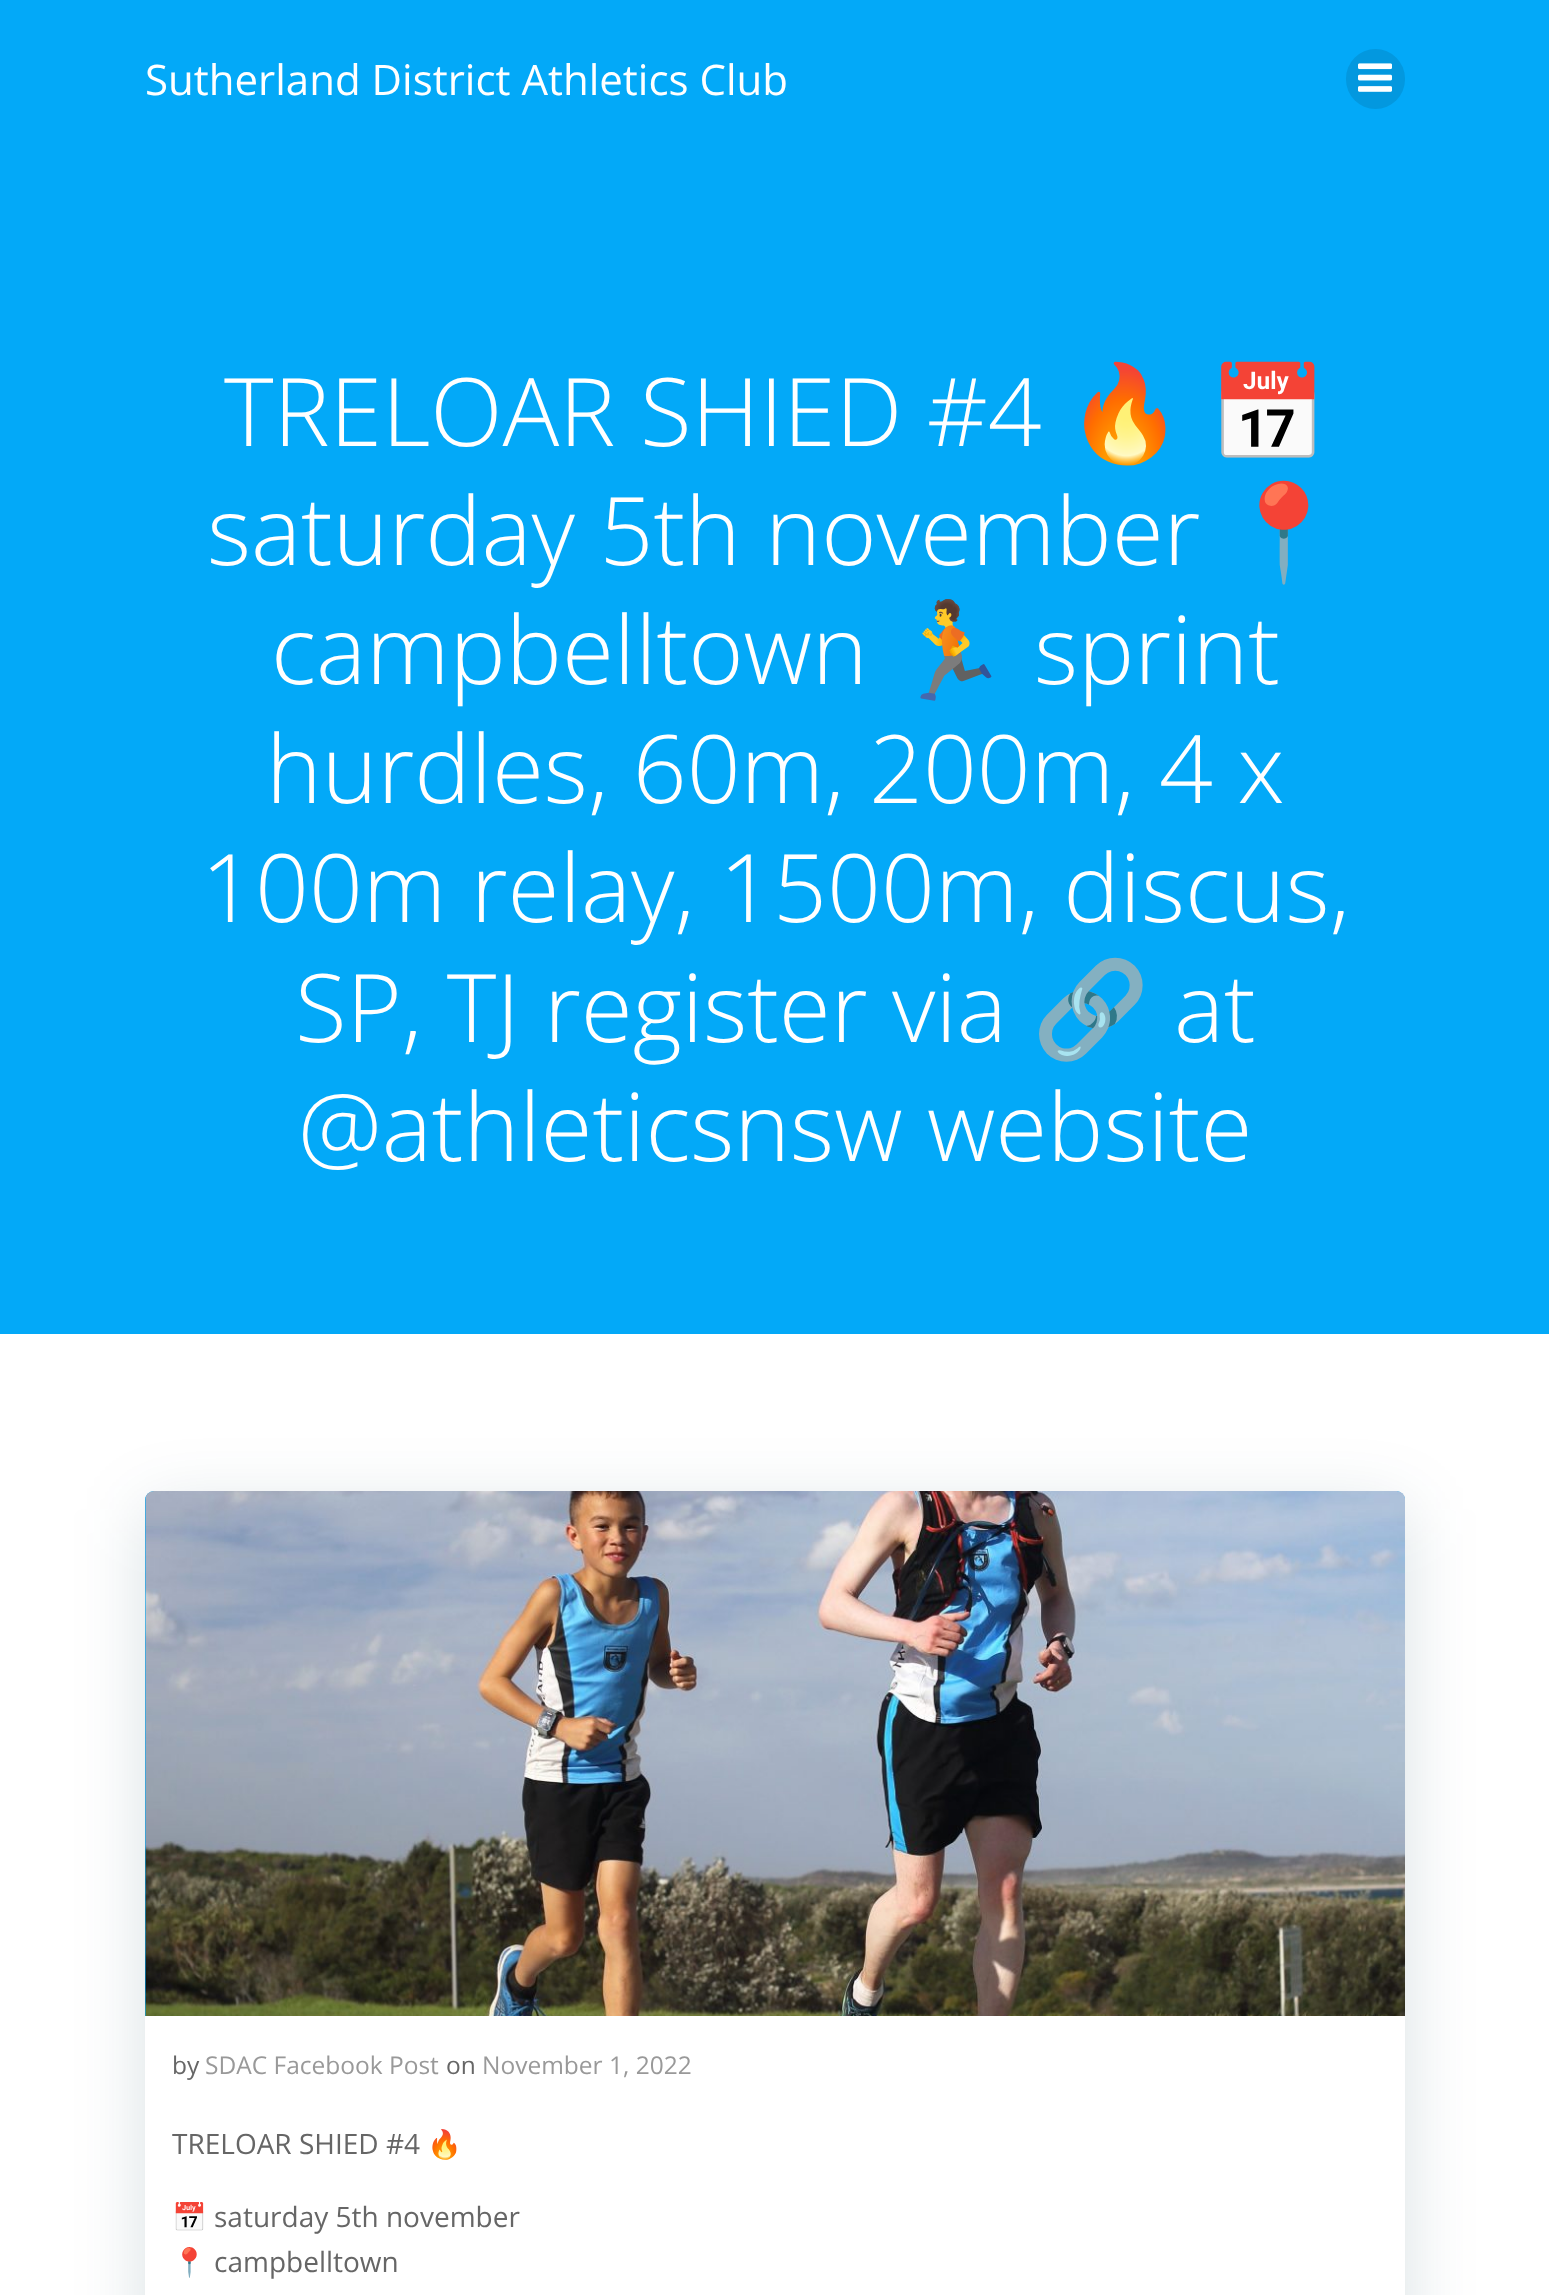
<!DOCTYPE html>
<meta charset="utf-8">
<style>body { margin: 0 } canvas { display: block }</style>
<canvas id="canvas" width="1549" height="2295"></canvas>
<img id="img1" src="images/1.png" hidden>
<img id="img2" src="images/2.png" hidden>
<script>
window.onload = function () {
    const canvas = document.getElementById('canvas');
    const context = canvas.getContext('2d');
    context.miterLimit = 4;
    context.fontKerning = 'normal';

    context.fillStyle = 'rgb(255, 255, 255)';
    context.fillRect(0, 0, 1549, 2295);
    context.fillStyle = 'rgb(3, 169, 248)';
    context.fillRect(0, 0, 1549, 1334);
    context.fillStyle = 'rgb(3, 152, 223)';
    context.beginPath();
    context.roundRect(1346, 49, 59, 60, 29.5);
    context.fill();
    context.drawImage(document.getElementById('img1'), 1358, 63, 34, 29);
    context.fillStyle = 'rgba(1, 51, 74, 0.15)';
    context.filter = 'blur(35px)';
    context.beginPath();
    context.roundRect(145, 1509, 1260, 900, 9);
    context.fill();
    context.filter = 'none';
    context.fillStyle = 'rgb(255, 255, 255)';
    context.beginPath();
    context.roundRect(145, 1491, 1260, 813, 9);
    context.fill();
    context.fillStyle = 'rgb(3, 169, 244)';
    context.beginPath();
    context.roundRect(145, 1491, 1260, 525, [9, 9, 0, 0]);
    context.fill();
    context.drawImage(document.getElementById('img2'), 145, 1491, 1260, 525);
    context.font = '42px Open Sans';
    context.fillStyle = 'rgb(255, 255, 255)';
    context.fillText('Sutherland District Athletics Club', 145, 95);
    context.font = '300 94.5px Open Sans';
    context.fillText('TRELOAR SHIED #4', 224, 446);
    context.font = '94.5px Noto Color Emoji';
    context.fillText('🔥', 1066, 446);
    context.fillText('📅', 1209, 446);
    context.font = '300 94.5px Open Sans';
    context.fillText('saturday 5th november', 207, 565);
    context.font = '94.5px Noto Color Emoji';
    context.fillText('📍', 1225, 565);
    context.font = '300 94.5px Open Sans';
    context.fillText('campbelltown', 271, 684);
    context.font = '94.5px Noto Color Emoji';
    context.fillText('🏃', 892, 684);
    context.font = '300 94.5px Open Sans';
    context.fillText('sprint', 1034, 684);
    context.fillText('hurdles, 60m, 200m, 4 x', 266, 803);
    context.fillText('100m relay, 1500m, discus,', 201, 922);
    context.fillText('SP, TJ register via', 295, 1042);
    context.font = '94.5px Noto Color Emoji';
    context.fillText('🔗', 1032, 1042);
    context.font = '300 94.5px Open Sans';
    context.fillText('at', 1174, 1042);
    context.fillText('@athleticsnsw website', 298, 1161);
    context.font = '24.5px Open Sans';
    context.fillStyle = 'rgb(102, 102, 102)';
    context.fillText('by', 172, 2074);
    context.fillStyle = 'rgb(153, 153, 153)';
    context.fillText('SDAC Facebook Post', 205, 2074);
    context.fillStyle = 'rgb(102, 102, 102)';
    context.fillText('on', 446, 2074);
    context.fillStyle = 'rgb(153, 153, 153)';
    context.fillText('November 1, 2022', 482, 2074);
    context.font = '28px Open Sans';
    context.fillStyle = 'rgb(102, 102, 102)';
    context.fillText('TRELOAR SHIED #4', 172, 2154);
    context.font = '28px Noto Color Emoji';
    context.fillText('🔥', 427, 2154);
    context.fillText('📅', 172, 2227);
    context.font = '28px Open Sans';
    context.fillText('saturday 5th november', 214, 2227);
    context.font = '28px Noto Color Emoji';
    context.fillText('📍', 172, 2272);
    context.font = '28px Open Sans';
    context.fillText('campbelltown', 214, 2272);
};
</script>
